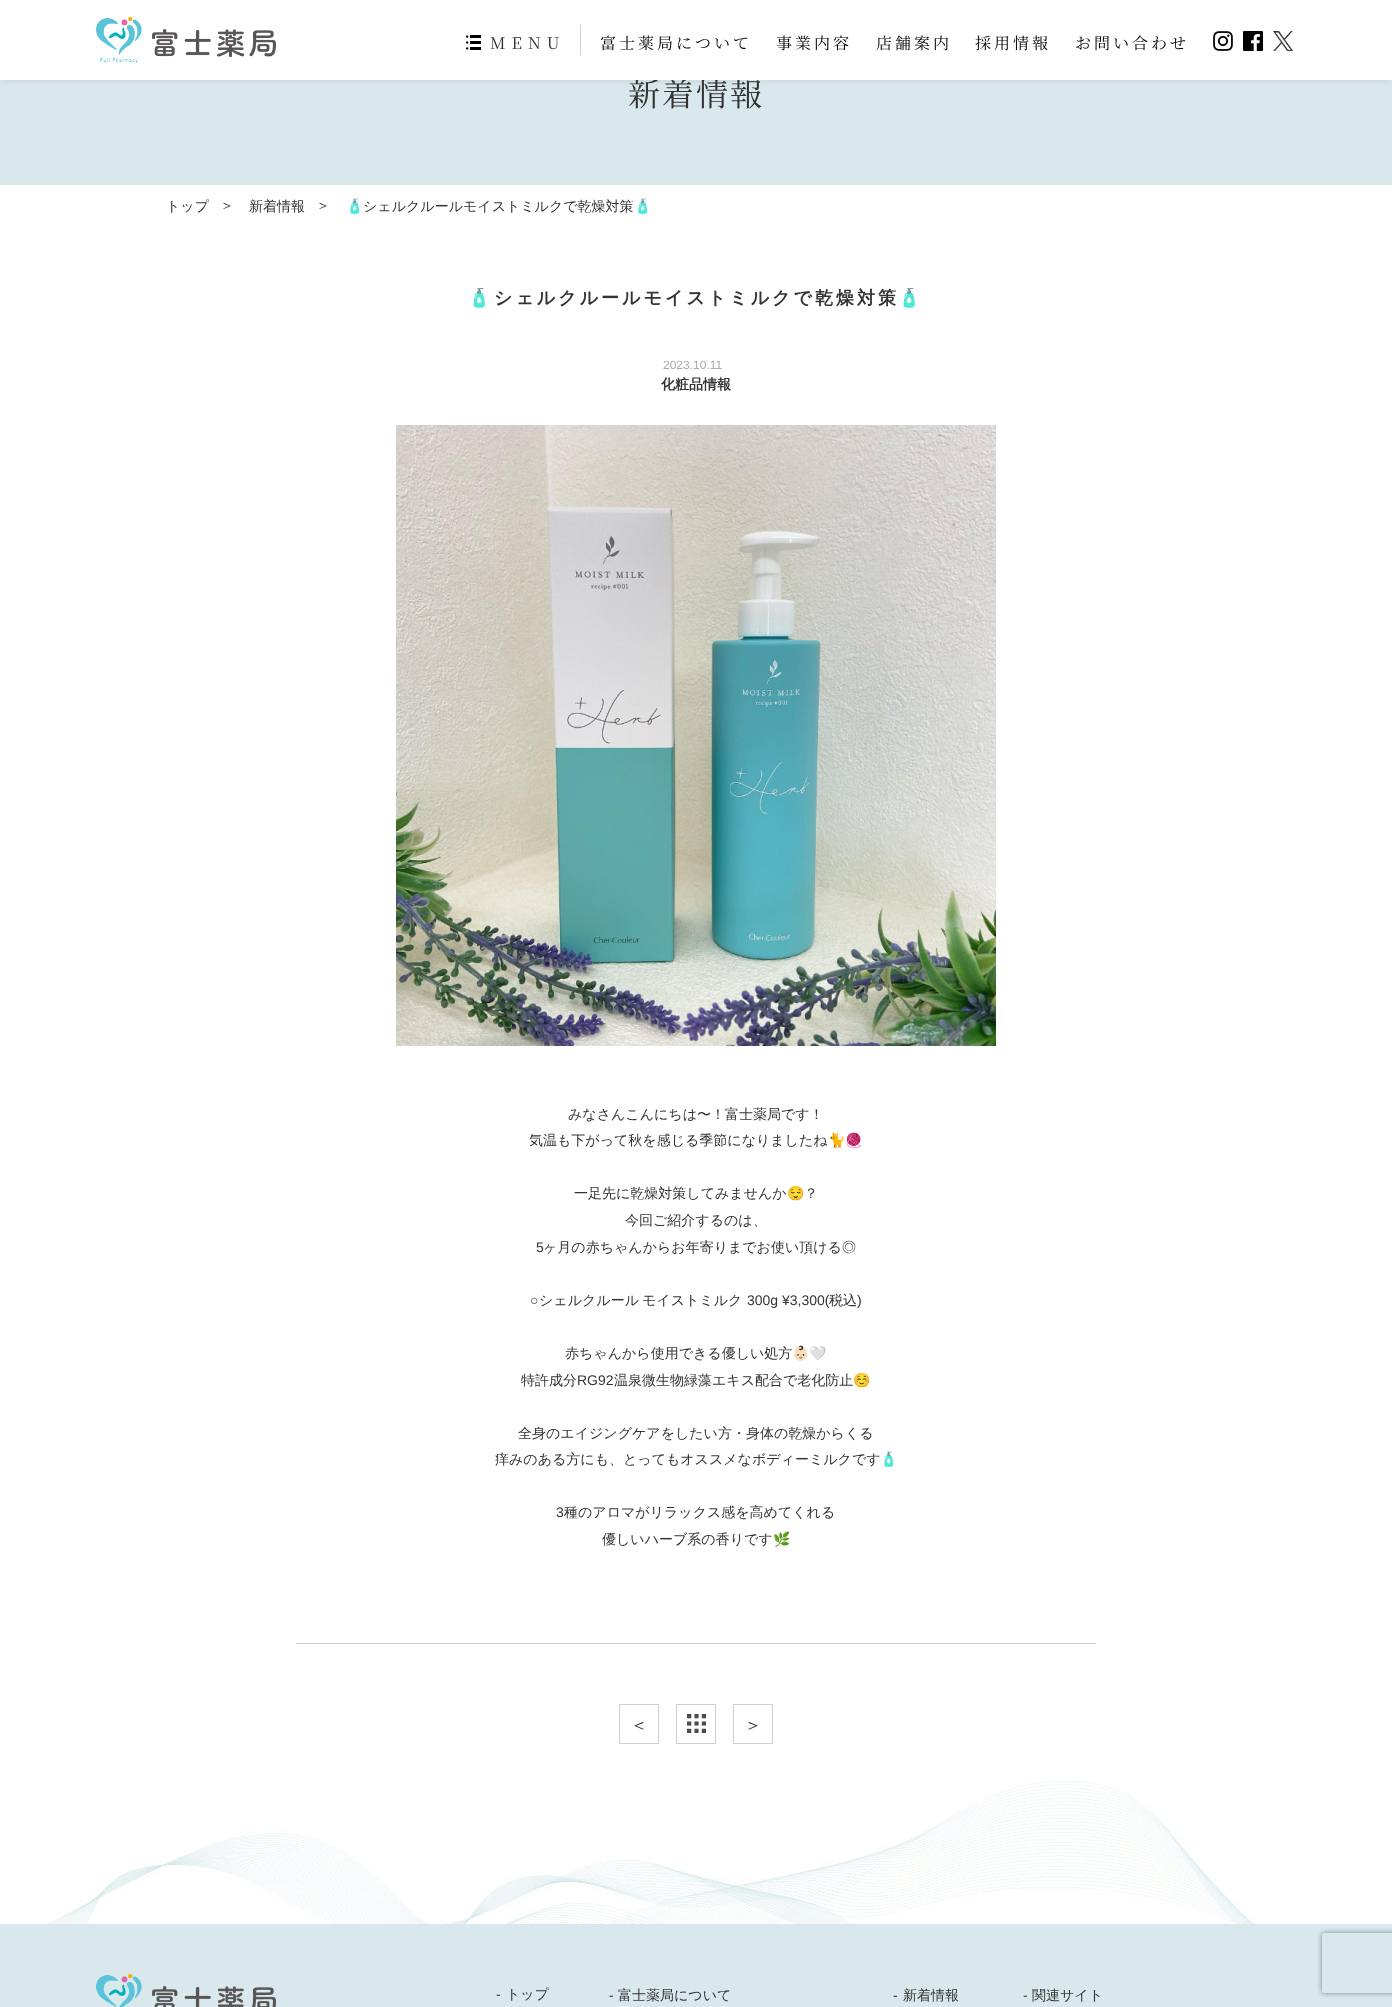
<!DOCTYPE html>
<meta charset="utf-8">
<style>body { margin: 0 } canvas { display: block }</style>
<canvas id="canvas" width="1392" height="2007"></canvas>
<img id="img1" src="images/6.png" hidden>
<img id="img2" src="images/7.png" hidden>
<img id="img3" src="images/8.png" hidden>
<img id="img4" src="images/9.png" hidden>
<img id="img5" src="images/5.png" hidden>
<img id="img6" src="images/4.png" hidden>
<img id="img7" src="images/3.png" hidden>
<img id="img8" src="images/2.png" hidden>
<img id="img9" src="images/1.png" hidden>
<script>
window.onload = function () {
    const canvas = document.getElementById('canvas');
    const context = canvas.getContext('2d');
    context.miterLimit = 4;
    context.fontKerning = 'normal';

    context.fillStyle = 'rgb(255, 255, 255)';
    context.fillRect(0, 0, 1392, 2007);
    context.fillStyle = 'rgb(216, 232, 236)';
    context.fillRect(0, 80, 1392, 105);
    context.fillStyle = 'rgb(204, 204, 204)';
    context.filter = 'blur(3px)';
    context.beginPath();
    context.rect(1, 2, 1390, 78);
    context.fill();
    context.filter = 'none';
    context.drawImage(document.getElementById('img1'), 48, 1781, 1208, 143);
    context.drawImage(document.getElementById('img2'), 396, 425, 600, 621);
    context.fillRect(296, 1643, 800, 1);
    context.strokeStyle = 'rgb(207, 207, 207)';
    context.strokeRect(619.5, 1704.5, 39, 39);
    context.strokeRect(676.5, 1704.5, 39, 39);
    context.drawImage(document.getElementById('img3'), 687, 1714, 19, 19);
    context.strokeRect(733.5, 1704.5, 39, 39);
    context.fillStyle = 'rgb(216, 232, 236)';
    context.fillRect(0, 1924, 1392, 83);
    context.drawImage(document.getElementById('img4'), 96, 1974, 180, 33);
    context.save();
    context.beginPath();
    context.moveTo(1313, 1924);
    context.lineTo(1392, 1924);
    context.lineTo(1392, 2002);
    context.lineTo(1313, 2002);
    context.closePath();
    context.moveTo(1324, 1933);
    context.lineTo(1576, 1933);
    context.bezierCurveTo(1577, 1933, 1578, 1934, 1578, 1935);
    context.lineTo(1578, 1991);
    context.bezierCurveTo(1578, 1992, 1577, 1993, 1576, 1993);
    context.lineTo(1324, 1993);
    context.bezierCurveTo(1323, 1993, 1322, 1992, 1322, 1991);
    context.lineTo(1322, 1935);
    context.bezierCurveTo(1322, 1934, 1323, 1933, 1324, 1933);
    context.closePath();
    context.clip('evenodd');
    context.fillStyle = 'rgb(128, 128, 128)';
    context.filter = 'blur(2.5px)';
    context.beginPath();
    context.roundRect(1322, 1933, 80, 60, 2);
    context.fill();
    context.filter = 'none';
    context.restore();
    context.letterSpacing = '2px';
    context.font = '200 32px Noto Serif JP';
    context.fillStyle = 'rgb(51, 51, 51)';
    context.fillText('新着情報', 628, 106);
    context.fillStyle = 'rgb(255, 255, 255)';
    context.fillRect(0, 0, 1392, 80);
    context.drawImage(document.getElementById('img5'), 1273, 30, 20, 21);
    context.drawImage(document.getElementById('img6'), 1243, 31, 20, 20);
    context.drawImage(document.getElementById('img7'), 1213, 31, 20, 20);
    context.letterSpacing = '3px';
    context.font = '200 16px Noto Serif JP';
    context.fillStyle = 'rgb(0, 0, 0)';
    context.fillText('お問い合わせ', 1075, 49);
    context.fillText('採用情報', 975, 49);
    context.fillText('店舗案内', 876, 49);
    context.fillText('事業内容', 776, 49);
    context.fillText('富士薬局について', 600, 49);
    context.drawImage(document.getElementById('img8'), 466, 35, 15, 15);
    context.letterSpacing = '6px';
    context.fillStyle = 'rgb(51, 51, 51)';
    context.fillText('MENU', 490, 49);
    context.fillStyle = 'rgb(204, 204, 204)';
    context.fillRect(580, 25, 1, 30);
    context.drawImage(document.getElementById('img9'), 96, 17, 180, 46);
    context.letterSpacing = '0px';
    context.font = '500 14px WenQuanYi Zen Hei';
    context.fillStyle = 'rgb(51, 51, 51)';
    context.fillText('トップ', 166, 211);
    context.fillText('＞', 220, 210);
    context.fillText('新着情報', 249, 211);
    context.fillText('＞', 316, 210);
    context.font = '14px Noto Color Emoji';
    context.fillText('🧴', 346, 211);
    context.font = '500 14px WenQuanYi Zen Hei';
    context.fillText('シェルクルールモイストミルクで乾燥対策', 363, 211);
    context.font = '14px Noto Color Emoji';
    context.fillText('🧴', 634, 211);
    context.letterSpacing = '3px';
    context.font = 'bold 18px Noto Color Emoji';
    context.fillText('🧴', 468, 304);
    context.font = 'bold 18px WenQuanYi Zen Hei';
    context.fillText('シェルクルールモイストミルクで乾燥対策', 494, 304);
    context.font = 'bold 18px Noto Color Emoji';
    context.fillText('🧴', 898, 304);
    context.letterSpacing = '0px';
    context.font = '12px Liberation Sans';
    context.fillStyle = 'rgb(170, 170, 170)';
    context.fillText('2023.10.11', 663, 369);
    context.font = 'bold 14px WenQuanYi Zen Hei';
    context.fillStyle = 'rgb(51, 51, 51)';
    context.fillText('化粧品情報', 661, 389);
    context.font = '500 14px WenQuanYi Zen Hei';
    context.fillText('みなさんこんにちは〜！富士薬局です！', 568, 1119);
    context.fillText('気温も下がって秋を感じる季節になりましたね', 529, 1145);
    context.font = '14px Noto Color Emoji';
    context.fillText('🐈🧶', 828, 1145);
    context.font = '500 14px WenQuanYi Zen Hei';
    context.fillText('一足先に乾燥対策してみませんか', 574, 1198);
    context.font = '14px Noto Color Emoji';
    context.fillText('😌', 787, 1198);
    context.font = '500 14px WenQuanYi Zen Hei';
    context.fillText('？', 804, 1198);
    context.fillText('今回ご紹介するのは、', 625, 1225);
    context.font = '14px Liberation Sans';
    context.fillText('5', 536, 1252);
    context.font = '500 14px WenQuanYi Zen Hei';
    context.fillText('ヶ月の赤ちゃんからお年寄りまでお使い頂ける◎', 543, 1252);
    context.font = '14px Liberation Sans';
    context.fillText('○', 530, 1305);
    context.font = '500 14px WenQuanYi Zen Hei';
    context.fillText('シェルクルール', 539, 1305);
    context.fillText('モイストミルク', 642, 1305);
    context.font = '14px Liberation Sans';
    context.fillText('300g ¥3,300(', 747, 1305);
    context.font = '500 14px WenQuanYi Zen Hei';
    context.fillText('税込', 829, 1305);
    context.font = '14px Liberation Sans';
    context.fillText(')', 857, 1305);
    context.font = '500 14px WenQuanYi Zen Hei';
    context.fillText('赤ちゃんから使用できる優しい処方', 565, 1358);
    context.font = '14px Noto Color Emoji';
    context.fillText('👶🏻🤍', 792, 1358);
    context.font = '500 14px WenQuanYi Zen Hei';
    context.fillText('特許成分', 521, 1385);
    context.font = '14px Liberation Sans';
    context.fillText('RG92', 577, 1385);
    context.font = '500 14px WenQuanYi Zen Hei';
    context.fillText('温泉微生物緑藻エキス配合で老化防止', 614, 1385);
    context.font = '14px Noto Color Emoji';
    context.fillText('☺️', 853, 1385);
    context.font = '500 14px WenQuanYi Zen Hei';
    context.fillText('全身のエイジングケアをしたい方・身体の乾燥からくる', 518, 1438);
    context.fillText('痒みのある方にも、とってもオススメなボディーミルクです', 495, 1464);
    context.font = '14px Noto Color Emoji';
    context.fillText('🧴', 880, 1464);
    context.font = '14px Liberation Sans';
    context.fillText('3', 556, 1517);
    context.font = '500 14px WenQuanYi Zen Hei';
    context.fillText('種のアロマがリラックス感を高めてくれる', 564, 1517);
    context.fillText('優しいハーブ系の香りです', 602, 1544);
    context.font = '14px Noto Color Emoji';
    context.fillText('🌿', 773, 1544);
    context.font = '500 18px WenQuanYi Zen Hei';
    context.fillText('＜', 630, 1731);
    context.fillText('＞', 744, 1731);
    context.font = '14px Liberation Sans';
    context.fillText('-', 496, 1999);
    context.font = '500 14px WenQuanYi Zen Hei';
    context.fillText('トップ', 506, 1999);
    context.font = '14px Liberation Sans';
    context.fillText('-', 609, 2000);
    context.font = '500 14px WenQuanYi Zen Hei';
    context.fillText('富士薬局について', 618, 2000);
    context.font = '14px Liberation Sans';
    context.fillText('-', 893, 2000);
    context.font = '500 14px WenQuanYi Zen Hei';
    context.fillText('新着情報', 903, 2000);
    context.font = '14px Liberation Sans';
    context.fillText('-', 1023, 2000);
    context.font = '500 14px WenQuanYi Zen Hei';
    context.fillText('関連サイト', 1032, 2000);
};
</script>
